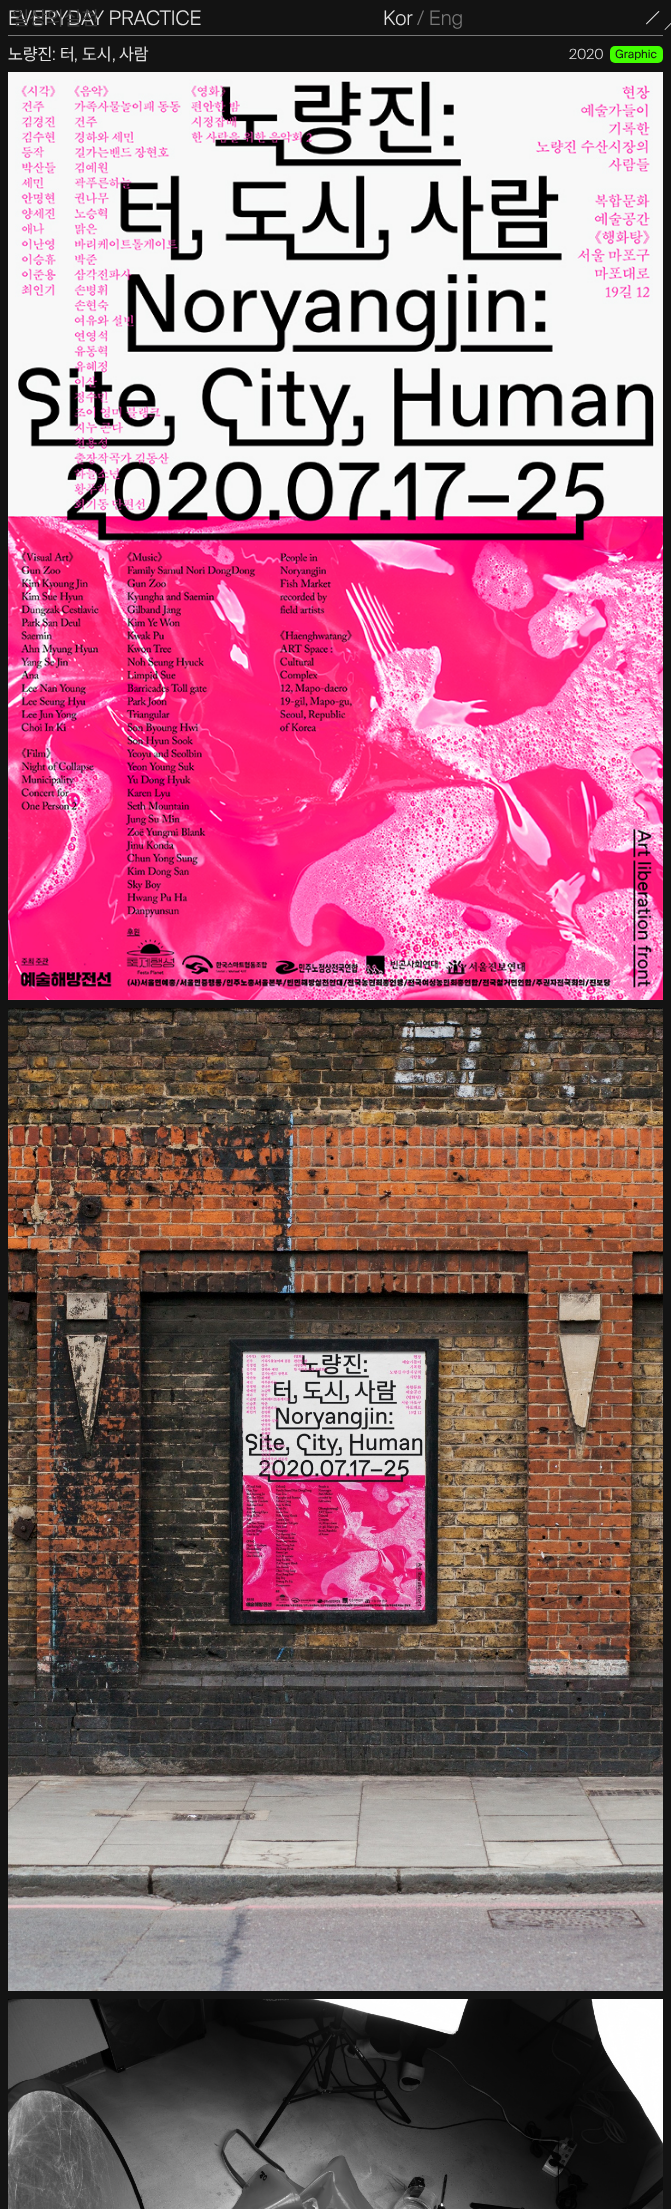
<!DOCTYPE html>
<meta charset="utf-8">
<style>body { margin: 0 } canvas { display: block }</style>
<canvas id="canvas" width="671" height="2209"></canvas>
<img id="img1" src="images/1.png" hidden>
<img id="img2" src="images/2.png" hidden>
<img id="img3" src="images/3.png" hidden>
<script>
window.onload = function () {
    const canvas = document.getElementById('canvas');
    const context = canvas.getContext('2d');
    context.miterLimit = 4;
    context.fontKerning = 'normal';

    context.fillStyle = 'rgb(19, 19, 19)';
    context.fillRect(0, 0, 671, 2209);
    context.fillStyle = 'rgb(226, 226, 226)';
    context.beginPath();
    context.moveTo(665, 30);
    context.lineTo(664.5, 29.5);
    context.lineTo(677, 16.5);
    context.lineTo(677.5, 17.5);
    context.closePath();
    context.moveTo(659.5, 11.5);
    context.lineTo(646.5, 24.5);
    context.lineTo(646, 23.5);
    context.lineTo(658.5, 11);
    context.closePath();
    context.fill();
    context.fillStyle = 'rgb(120, 120, 120)';
    context.fillRect(8, 35, 655, 1);
    context.fillStyle = 'rgb(66, 255, 0)';
    context.beginPath();
    context.roundRect(610, 46, 53, 17, 5);
    context.fill();
    context.drawImage(document.getElementById('img1'), 8, 72, 655, 928);
    context.drawImage(document.getElementById('img2'), 8, 1008, 655, 983);
    context.drawImage(document.getElementById('img3'), 8, 1999, 655, 210);
    context.font = '300 20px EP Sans';
    context.fillStyle = 'rgb(226, 226, 226)';
    context.fillText('EVERYDAY PRACTICE', 8, 25);
    context.font = '20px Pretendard';
    context.fillStyle = 'rgb(61, 61, 61)';
    context.fillText('일상의실천', 12, 25);
    context.font = '300 20px EP Sans';
    context.fillStyle = 'rgb(226, 226, 226)';
    context.fillText('Kor', 383, 25);
    context.fillStyle = 'rgb(120, 120, 120)';
    context.fillText('/ Eng', 417, 25);
    context.font = '17px Pretendard';
    context.fillStyle = 'rgb(226, 226, 226)';
    context.fillText('노량진', 8, 60);
    context.font = '300 17px EP Sans';
    context.fillText(':', 52, 60);
    context.font = '17px Pretendard';
    context.fillText('터', 60, 60);
    context.fillText('도시', 82, 60);
    context.fillText('사람', 119, 60);
    context.font = '300 17px EP Sans';
    context.fillText(',', 74, 60);
    context.fillText(',', 112, 60);
    context.font = '300 14px EP Sans';
    context.fillText('2020', 569, 59);
    context.font = '11.5px EP Sans';
    context.fillStyle = 'rgb(19, 19, 19)';
    context.fillText('Graphic', 615, 58);
};
</script>
